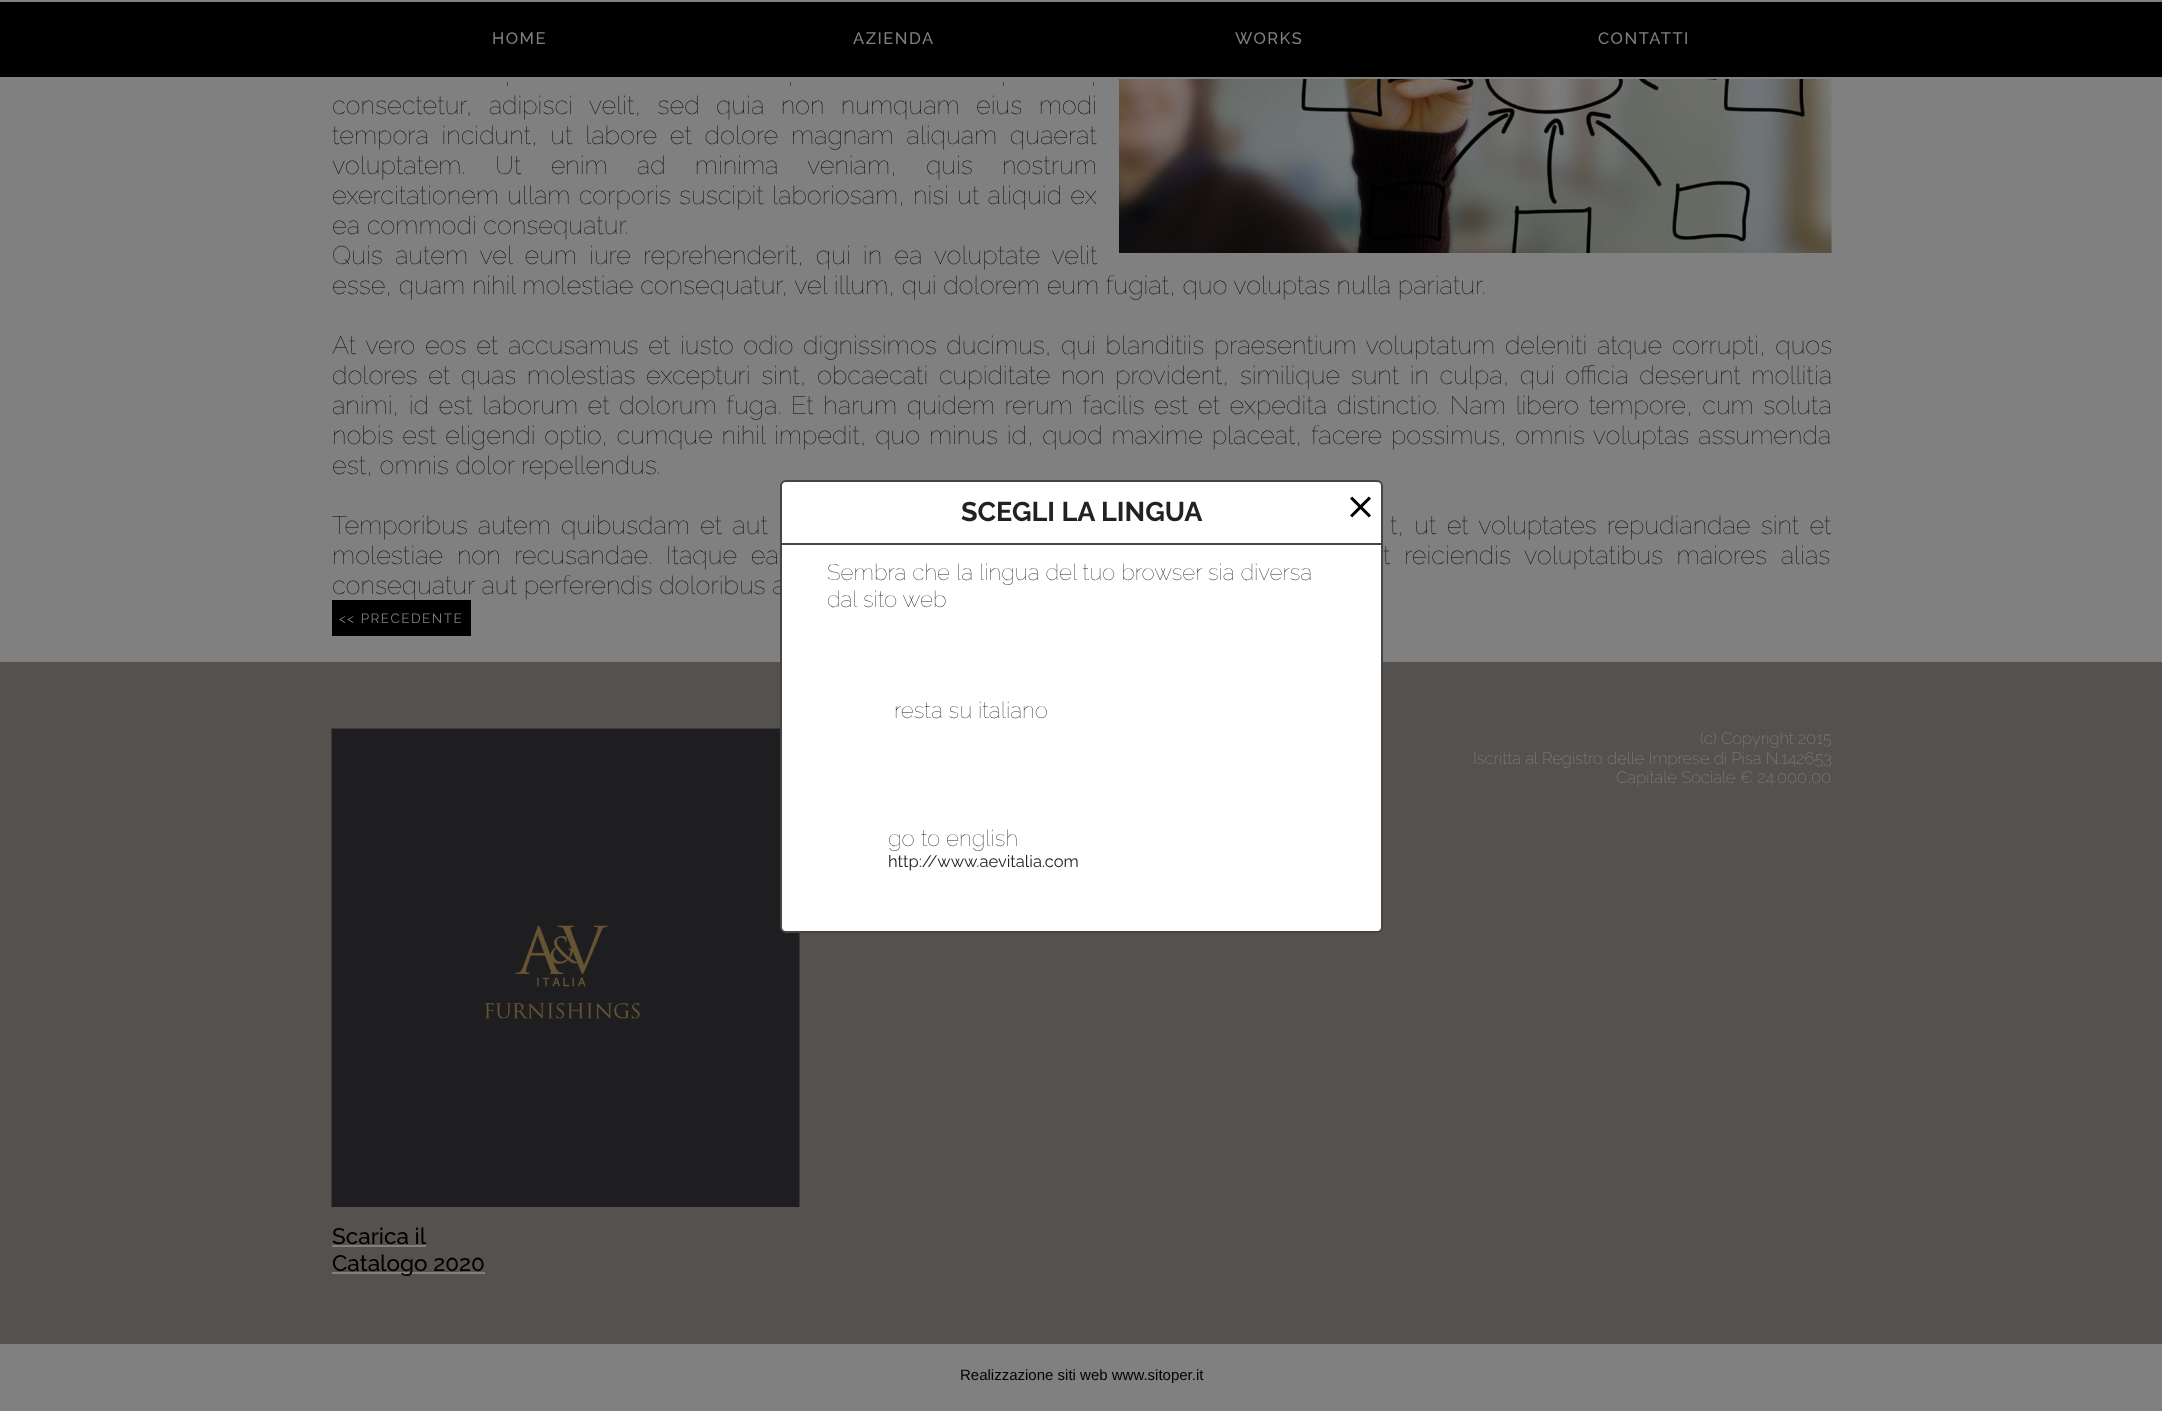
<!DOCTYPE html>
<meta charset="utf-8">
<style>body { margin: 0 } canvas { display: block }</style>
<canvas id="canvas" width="2162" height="1411"></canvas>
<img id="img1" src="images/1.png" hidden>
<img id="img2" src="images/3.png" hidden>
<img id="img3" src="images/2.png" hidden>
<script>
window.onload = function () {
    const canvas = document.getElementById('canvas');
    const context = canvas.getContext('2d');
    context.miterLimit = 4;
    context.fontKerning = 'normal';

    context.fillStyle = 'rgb(128, 128, 128)';
    context.fillRect(0, 0, 2162, 1411);
    context.fillStyle = 'rgb(0, 0, 0)';
    context.fillRect(0, 2, 2162, 75);
    context.drawImage(document.getElementById('img1'), 1119, 79, 713, 174);
    context.fillRect(332, 600, 139, 36);
    context.fillStyle = 'rgb(85, 81, 79)';
    context.fillRect(0, 662, 2162, 682);
    context.drawImage(document.getElementById('img2'), 331, 728, 469, 479);
    context.fillStyle = 'rgb(128, 128, 128)';
    context.fillRect(332, 1245, 94, 2);
    context.fillRect(332, 1272, 153, 2);
    context.letterSpacing = '1.5px';
    context.font = '500 16.5px Raleway';
    context.fillText('HOME', 492, 44);
    context.fillText('AZIENDA', 853, 44);
    context.fillText('WORKS', 1235, 44);
    context.fillText('CONTATTI', 1598, 44);
    context.letterSpacing = '0px';
    context.wordSpacing = '18px';
    context.font = '100 25.5px Raleway';
    context.fillStyle = 'rgb(0, 0, 0)';
    context.fillText(',', 504, 84);
    context.fillText(',', 787, 84);
    context.fillText(',', 1000, 84);
    context.fillText(',', 1090, 84);
    context.wordSpacing = '9.75px';
    context.fillText('consectetur, adipisci velit, sed quia non numquam eius modi', 332, 114);
    context.wordSpacing = '6px';
    context.fillText('tempora incidunt, ut labore et dolore magnam aliquam quaerat', 332, 144);
    context.wordSpacing = '22.5px';
    context.fillText('voluptatem. Ut enim ad minima veniam, quis nostrum', 332, 174);
    context.wordSpacing = '1.5px';
    context.fillText('exercitationem ullam corporis suscipit laboriosam, nisi ut aliquid ex', 332, 204);
    context.wordSpacing = '0px';
    context.fillText('ea commodi consequatur.', 332, 234);
    context.wordSpacing = '5.5px';
    context.fillText('Quis autem vel eum iure reprehenderit, qui in ea voluptate velit', 332, 264);
    context.wordSpacing = '0px';
    context.fillText('esse, quam nihil molestiae consequatur, vel illum, qui dolorem eum fugiat, quo voluptas nulla pariatur.', 332, 294);
    context.wordSpacing = '3px';
    context.fillText('At vero eos et accusamus et iusto odio dignissimos ducimus, qui blanditiis praesentium voluptatum deleniti atque corrupti, quos', 332, 354);
    context.wordSpacing = '3.9px';
    context.fillText('dolores et quas molestias excepturi sint, obcaecati cupiditate non provident, similique sunt in culpa, qui officia deserunt mollitia', 332, 384);
    context.wordSpacing = '2.9px';
    context.fillText('animi, id est laborum et dolorum fuga. Et harum quidem rerum facilis est et expedita distinctio. Nam libero tempore, cum soluta', 332, 414);
    context.wordSpacing = '2.1px';
    context.fillText('nobis est eligendi optio, cumque nihil impedit, quo minus id, quod maxime placeat, facere possimus, omnis voluptas assumenda', 332, 444);
    context.wordSpacing = '0px';
    context.fillText('est, omnis dolor repellendus.', 332, 474);
    context.wordSpacing = '3.5px';
    context.fillText('Temporibus autem quibusdam et aut', 332, 534);
    context.fillText('t, ut et voluptates repudiandae sint et', 1390, 534);
    context.wordSpacing = '7px';
    context.fillText('molestiae non recusandae. Itaque ea', 332, 564);
    context.fillText('t reiciendis voluptatibus maiores alias', 1383, 564);
    context.wordSpacing = '0px';
    context.fillText('consequatur aut perferendis doloribus a', 332, 594);
    context.letterSpacing = '1.5px';
    context.font = '13.5px Raleway';
    context.fillStyle = 'rgb(128, 128, 128)';
    context.fillText('<< PRECEDENTE', 339, 623);
    context.fillStyle = 'rgb(255, 255, 255)';
    context.beginPath();
    context.roundRect(781, 481, 601, 451, 5);
    context.fill();
    context.strokeStyle = 'rgb(68, 68, 68)';
    context.lineWidth = 2;
    context.stroke();
    context.fillStyle = 'rgb(68, 68, 68)';
    context.fillRect(782, 543, 600, 2);
    context.letterSpacing = '0px';
    context.font = 'bold 27px Raleway';
    context.fillStyle = 'rgb(34, 34, 34)';
    context.fillText('SCEGLI LA LINGUA', 961, 521);
    context.drawImage(document.getElementById('img3'), 1350, 496, 21, 22);
    context.font = '100 22.5px Raleway';
    context.fillText('Sembra che la lingua del tuo browser sia diversa', 827, 580);
    context.fillText('dal sito web', 827, 607);
    context.fillText('resta su italiano', 894, 718);
    context.fillText('go to english', 888, 846);
    context.font = '16.5px Raleway';
    context.fillText('http://www.aevitalia.com', 888, 867);
    context.font = '200 16.5px Raleway';
    context.fillStyle = 'rgb(128, 128, 128)';
    context.fillText('(c) Copyright 2015', 1700, 744);
    context.fillText('Iscritta al Registro delle Imprese di Pisa N.142653', 1473, 764);
    context.fillText('Capitale Sociale € 24.000,00', 1616, 783);
    context.font = '500 22.5px Raleway';
    context.fillStyle = 'rgb(0, 0, 0)';
    context.fillText('Scarica il', 332, 1244);
    context.fillText('Catalogo 2020', 332, 1271);
    context.font = '15px Liberation Sans';
    context.fillText('Realizzazione siti web www.sitoper.it', 960, 1380);
};
</script>
